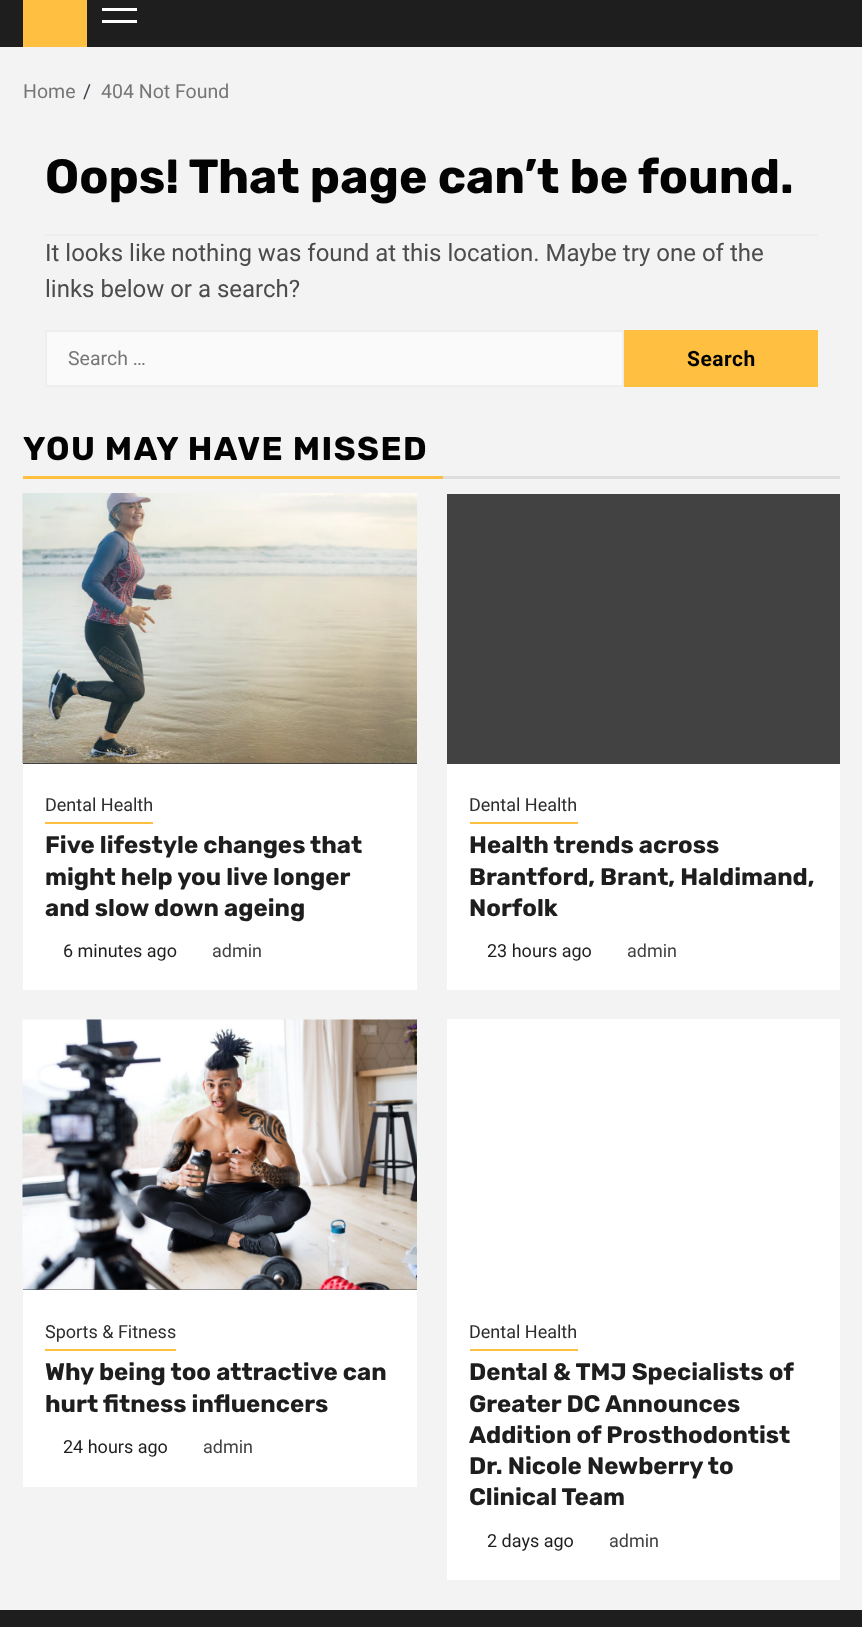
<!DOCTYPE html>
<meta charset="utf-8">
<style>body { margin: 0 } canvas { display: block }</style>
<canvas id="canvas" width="862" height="1627"></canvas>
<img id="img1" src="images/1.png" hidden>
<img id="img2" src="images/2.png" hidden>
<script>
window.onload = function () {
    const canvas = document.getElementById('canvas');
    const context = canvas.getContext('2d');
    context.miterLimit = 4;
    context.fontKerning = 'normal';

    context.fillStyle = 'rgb(243, 243, 243)';
    context.fillRect(0, 0, 862, 1627);
    context.fillStyle = 'rgb(30, 30, 30)';
    context.fillRect(0, 0, 862, 47);
    context.fillStyle = 'rgb(255, 192, 65)';
    context.fillRect(23, 0, 64, 47);
    context.fillStyle = 'rgb(255, 255, 255)';
    context.fillRect(102, 8, 35, 3);
    context.fillRect(102, 20, 35, 3);
    context.fillStyle = 'rgb(238, 238, 238)';
    context.fillRect(45, 234, 773, 2);
    context.fillStyle = 'rgb(250, 250, 250)';
    context.beginPath();
    context.rect(46, 331, 577, 55);
    context.fill();
    context.strokeStyle = 'rgb(238, 238, 238)';
    context.lineWidth = 2;
    context.stroke();
    context.fillStyle = 'rgb(255, 192, 65)';
    context.fillRect(624, 330, 194, 57);
    context.fillRect(23, 476, 420, 3);
    context.fillStyle = 'rgb(222, 222, 222)';
    context.fillRect(443, 476, 397, 3);
    context.fillStyle = 'rgb(255, 255, 255)';
    context.fillRect(23, 764, 394, 226);
    context.fillStyle = 'rgb(66, 66, 66)';
    context.fillRect(23, 763, 394, 1);
    context.drawImage(document.getElementById('img1'), 22, 493, 395, 270);
    context.fillStyle = 'rgb(255, 192, 65)';
    context.fillRect(45, 822, 108, 2);
    context.fillStyle = 'rgb(255, 255, 255)';
    context.fillRect(447, 764, 393, 226);
    context.fillStyle = 'rgb(66, 66, 66)';
    context.fillRect(447, 494, 393, 270);
    context.fillStyle = 'rgb(255, 192, 65)';
    context.fillRect(470, 822, 108, 2);
    context.fillStyle = 'rgb(255, 255, 255)';
    context.fillRect(23, 1290, 394, 197);
    context.fillStyle = 'rgb(66, 66, 66)';
    context.fillRect(23, 1289, 394, 1);
    context.drawImage(document.getElementById('img2'), 22, 1019, 395, 271);
    context.fillStyle = 'rgb(255, 192, 65)';
    context.fillRect(45, 1349, 131, 2);
    context.fillStyle = 'rgb(255, 255, 255)';
    context.fillRect(447, 1019, 393, 561);
    context.fillStyle = 'rgb(255, 192, 65)';
    context.fillRect(470, 1349, 108, 2);
    context.fillStyle = 'rgb(30, 30, 30)';
    context.fillRect(0, 1610, 862, 17);
    context.font = '19.5px Roboto';
    context.fillStyle = 'rgb(118, 118, 118)';
    context.fillText('Home', 23, 98);
    context.fillStyle = 'rgb(59, 64, 72)';
    context.fillText('/', 83, 98);
    context.fillStyle = 'rgb(118, 118, 118)';
    context.fillText('404 Not Found', 101, 98);
    context.font = 'bold 48px Rubik';
    context.fillStyle = 'rgb(3, 3, 3)';
    context.fillText('Oops! That page can’t be found.', 45, 193);
    context.font = '24px Roboto';
    context.fillStyle = 'rgb(76, 76, 76)';
    context.fillText('It looks like nothing was found at this location. Maybe try one of the', 45, 261);
    context.fillText('links below or a search?', 45, 297);
    context.font = '19.5px Roboto';
    context.fillStyle = 'rgb(118, 118, 118)';
    context.fillText('Search …', 68, 365);
    context.letterSpacing = '0.5px';
    context.font = 'bold 21px Roboto';
    context.fillStyle = 'rgb(3, 3, 3)';
    context.fillText('Search', 687, 366);
    context.letterSpacing = '1.5px';
    context.font = 'bold 33px Rubik';
    context.fillText('YOU MAY HAVE MISSED', 23, 460);
    context.letterSpacing = '0px';
    context.font = '18px Roboto';
    context.fillStyle = 'rgb(45, 45, 45)';
    context.fillText('Dental Health', 45, 811);
    context.font = 'bold 24px Rubik';
    context.fillStyle = 'rgb(30, 30, 30)';
    context.fillText('Five lifestyle changes that', 45, 853);
    context.fillText('might help you live longer', 45, 885);
    context.fillText('and slow down ageing', 45, 916);
    context.font = '18px Roboto';
    context.fillText('6 minutes ago', 63, 957);
    context.fillStyle = 'rgb(66, 66, 66)';
    context.fillText('admin', 212, 957);
    context.fillStyle = 'rgb(45, 45, 45)';
    context.fillText('Dental Health', 469, 811);
    context.font = 'bold 24px Rubik';
    context.fillStyle = 'rgb(30, 30, 30)';
    context.fillText('Health trends across', 469, 853);
    context.fillText('Brantford, Brant, Haldimand,', 469, 885);
    context.fillText('Norfolk', 469, 916);
    context.font = '18px Roboto';
    context.fillText('23 hours ago', 487, 957);
    context.fillStyle = 'rgb(66, 66, 66)';
    context.fillText('admin', 627, 957);
    context.fillStyle = 'rgb(45, 45, 45)';
    context.fillText('Sports & Fitness', 45, 1338);
    context.font = 'bold 24px Rubik';
    context.fillStyle = 'rgb(30, 30, 30)';
    context.fillText('Why being too attractive can', 45, 1380);
    context.fillText('hurt fitness influencers', 45, 1412);
    context.font = '18px Roboto';
    context.fillText('24 hours ago', 63, 1453);
    context.fillStyle = 'rgb(66, 66, 66)';
    context.fillText('admin', 203, 1453);
    context.fillStyle = 'rgb(45, 45, 45)';
    context.fillText('Dental Health', 469, 1338);
    context.font = 'bold 24px Rubik';
    context.fillStyle = 'rgb(30, 30, 30)';
    context.fillText('Dental & TMJ Specialists of', 469, 1380);
    context.fillText('Greater DC Announces', 469, 1412);
    context.fillText('Addition of Prosthodontist', 469, 1443);
    context.fillText('Dr. Nicole Newberry to', 469, 1474);
    context.fillText('Clinical Team', 469, 1505);
    context.font = '18px Roboto';
    context.fillText('2 days ago', 487, 1547);
    context.fillStyle = 'rgb(66, 66, 66)';
    context.fillText('admin', 609, 1547);
};
</script>
